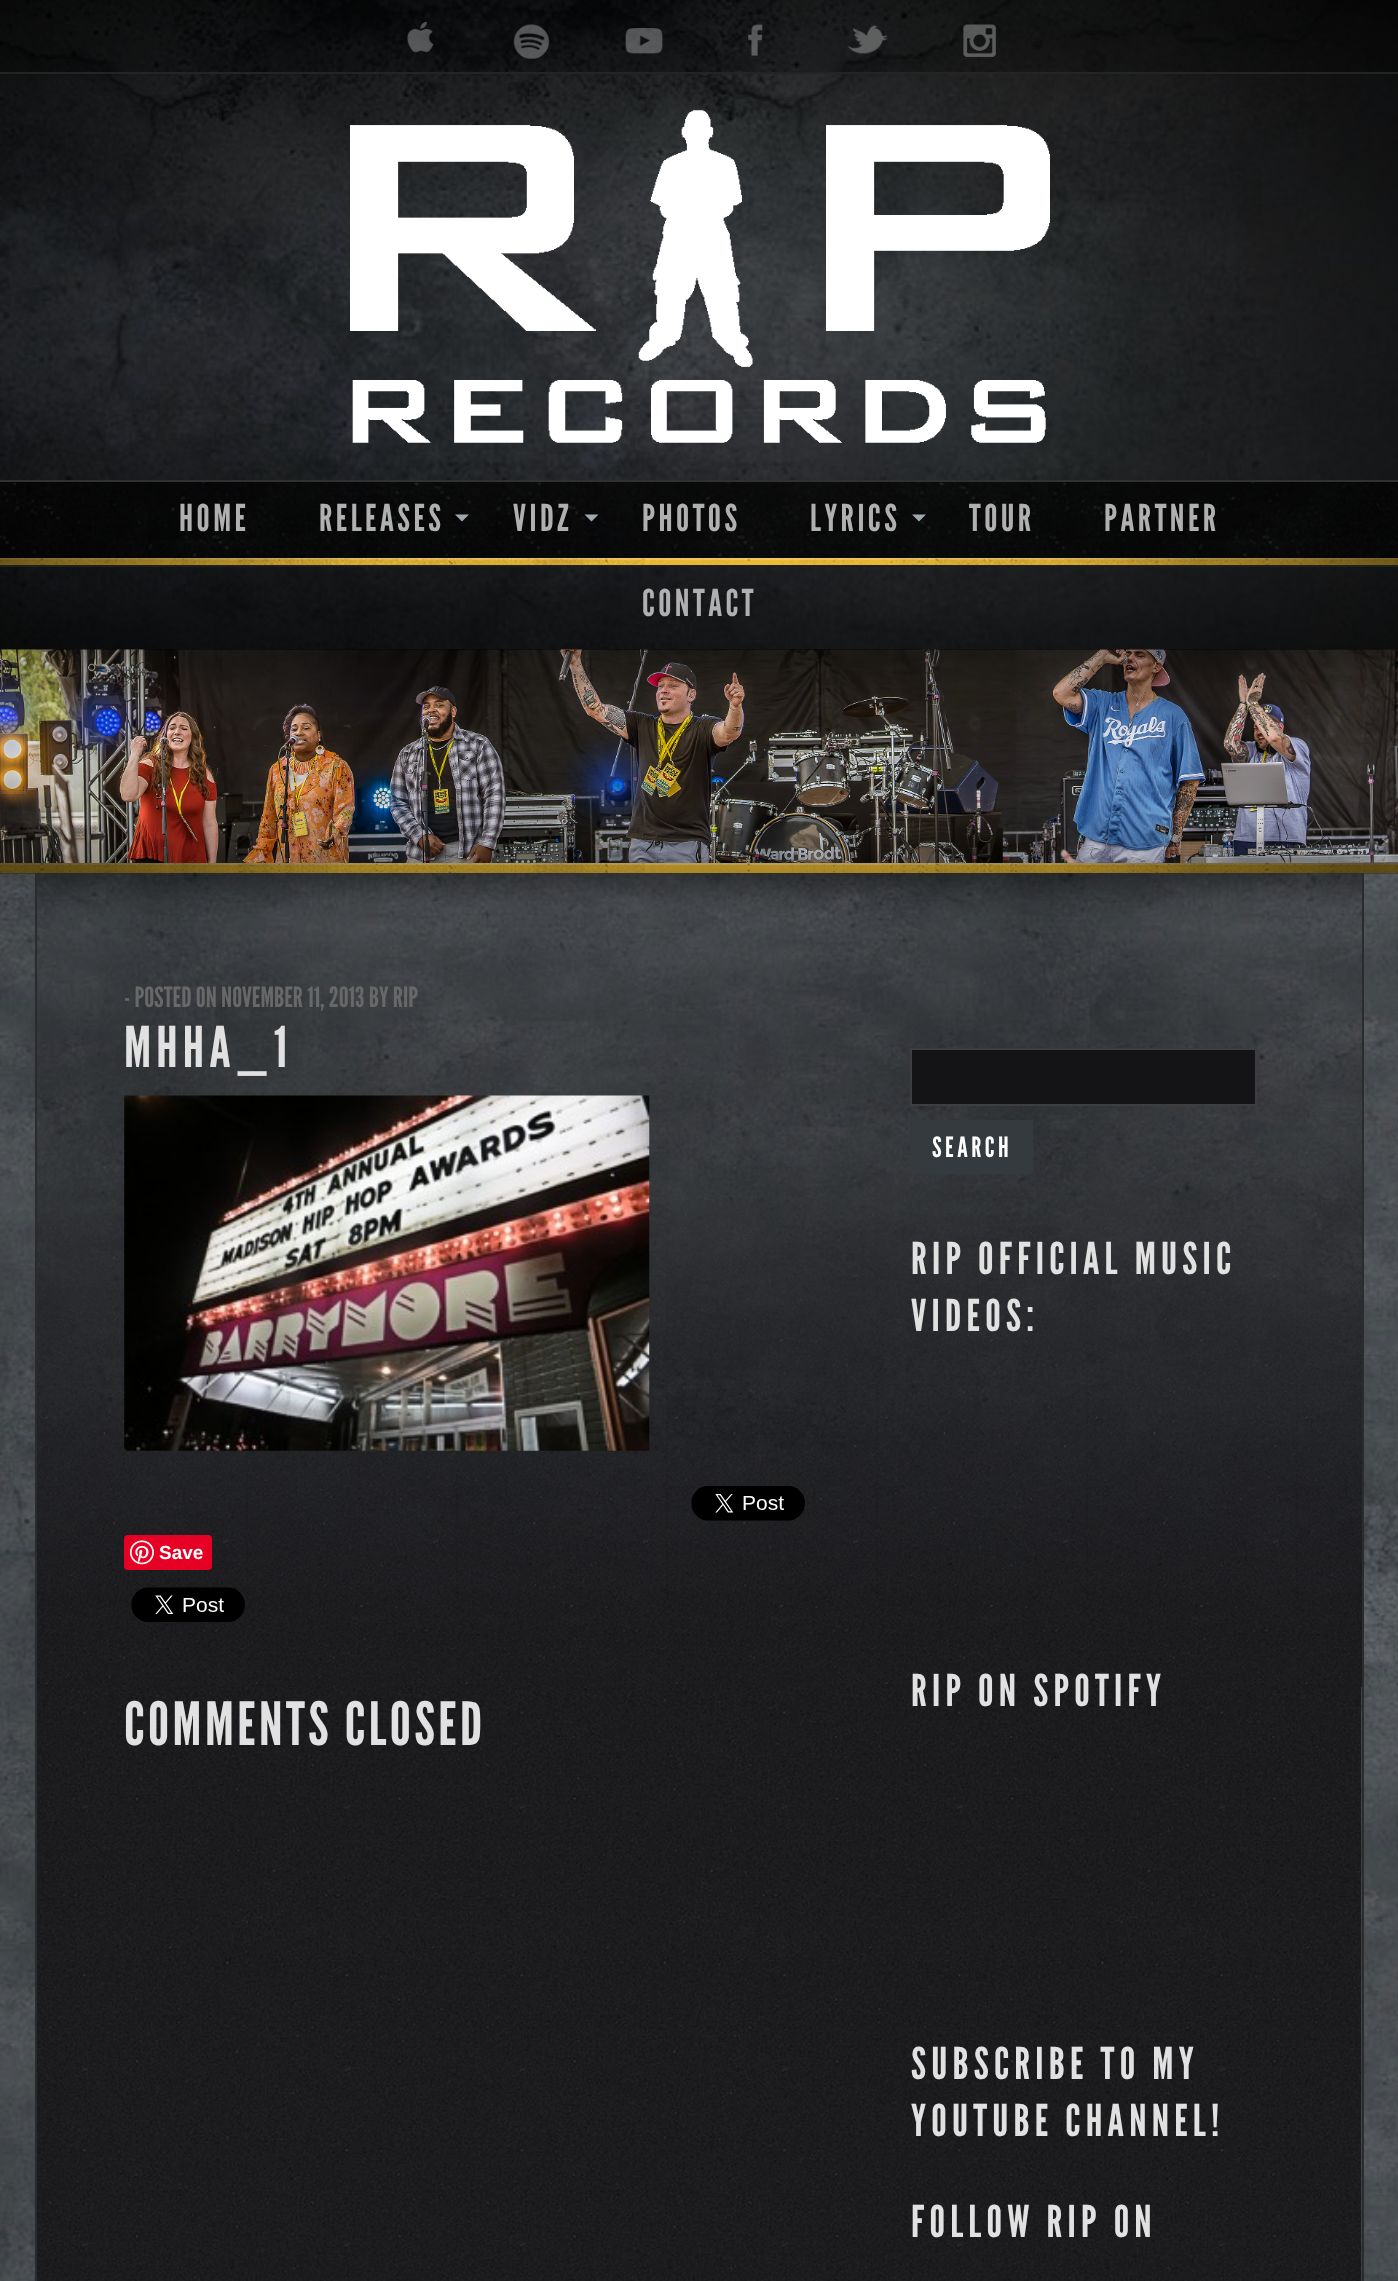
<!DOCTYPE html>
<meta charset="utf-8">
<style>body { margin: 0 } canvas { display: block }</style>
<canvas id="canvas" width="1398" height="2281"></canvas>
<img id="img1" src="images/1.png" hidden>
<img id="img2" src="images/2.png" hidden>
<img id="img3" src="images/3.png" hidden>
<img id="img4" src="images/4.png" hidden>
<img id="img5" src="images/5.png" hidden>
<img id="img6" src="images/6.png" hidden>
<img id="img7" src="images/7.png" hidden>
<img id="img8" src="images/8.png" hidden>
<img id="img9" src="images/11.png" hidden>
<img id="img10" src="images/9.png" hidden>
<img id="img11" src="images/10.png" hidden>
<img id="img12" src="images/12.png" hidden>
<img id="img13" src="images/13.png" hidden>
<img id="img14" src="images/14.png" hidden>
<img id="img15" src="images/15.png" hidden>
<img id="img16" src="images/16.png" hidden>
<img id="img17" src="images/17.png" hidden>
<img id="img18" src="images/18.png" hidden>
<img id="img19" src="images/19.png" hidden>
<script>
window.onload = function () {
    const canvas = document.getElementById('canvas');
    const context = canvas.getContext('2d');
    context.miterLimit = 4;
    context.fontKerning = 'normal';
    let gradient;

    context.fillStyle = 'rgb(0, 0, 0)';
    context.fillRect(0, 0, 1398, 2281);
    context.drawImage(document.getElementById('img1'), 0, 0, 1398, 650);
    gradient = context.createRadialGradient(699, 699.29, 0, 699, 699.29, 989);
    gradient.addColorStop(0, 'rgba(0, 0, 0, 0.2)');
    gradient.addColorStop(0.05, 'rgba(0, 0, 0, 0.2)');
    gradient.addColorStop(1, 'rgba(0, 0, 0, 0.9)');
    context.fillStyle = gradient;
    context.beginPath();
    context.rect(0, 0, 1398, 650);
    context.save();
    context.clip();
    context.scale(1, 495 / 989);
    context.fillRect(0, 0, 1398, 4558);
    context.restore();
    context.fillStyle = 'rgba(0, 0, 0, 0.25)';
    context.fillRect(0, 0, 1398, 72);
    context.fillStyle = 'rgb(35, 36, 36)';
    context.fillRect(0, 72, 1398, 2);
    context.drawImage(document.getElementById('img2'), 407, 22, 27, 31);
    context.drawImage(document.getElementById('img3'), 513, 24, 37, 35);
    context.drawImage(document.getElementById('img4'), 625, 28, 38, 26);
    context.drawImage(document.getElementById('img5'), 748, 24, 15, 32);
    context.drawImage(document.getElementById('img6'), 847, 25, 41, 29);
    context.drawImage(document.getElementById('img7'), 963, 24, 33, 33);
    context.drawImage(document.getElementById('img8'), 350, 110, 700, 333);
    context.drawImage(document.getElementById('img9'), 0, 649, 1398, 225);
    context.save();
    context.beginPath();
    context.rect(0, 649, 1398, 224);
    context.clip();
    context.fillStyle = 'rgba(0, 0, 0, 0.4)';
    context.filter = 'blur(35px)';
    context.beginPath();
    context.rect(0, 579, 1398, 88);
    context.fill();
    context.filter = 'none';
    context.restore();
    context.fillStyle = 'rgba(0, 0, 0, 0.75)';
    context.fillRect(0, 482, 1398, 76);
    context.drawImage(document.getElementById('img10'), 0, 482, 1398, 76);
    context.fillStyle = 'rgb(49, 49, 49)';
    context.fillRect(0, 480, 1398, 2);
    context.fillStyle = 'rgb(31, 31, 31)';
    context.fillRect(0, 565, 1398, 2);
    context.fillStyle = 'rgb(158, 170, 174)';
    context.beginPath();
    context.moveTo(455, 514.5);
    context.lineTo(469, 514.5);
    context.lineTo(462, 521.5);
    context.closePath();
    context.fill();
    context.beginPath();
    context.moveTo(584.5, 514.5);
    context.lineTo(598.5, 514.5);
    context.lineTo(591.5, 521.5);
    context.closePath();
    context.fill();
    context.beginPath();
    context.moveTo(912, 514.5);
    context.lineTo(926, 514.5);
    context.lineTo(919, 521.5);
    context.closePath();
    context.fill();
    context.fillStyle = 'rgb(237, 188, 54)';
    context.fillRect(0, 560, 1398, 5);
    context.fillStyle = 'rgb(241, 201, 94)';
    context.fillRect(0, 558, 1398, 2);
    context.drawImage(document.getElementById('img11'), 0, 558, 1398, 7);
    gradient = context.createRadialGradient(699, 11403.78, 0, 699, 11403.78, 989);
    gradient.addColorStop(0.36, 'rgba(0, 0, 0, 0)');
    gradient.addColorStop(0.48, 'rgba(0, 0, 0, 0.17)');
    gradient.addColorStop(1, 'rgba(0, 0, 0, 0.9)');
    context.fillStyle = gradient;
    context.beginPath();
    context.rect(0, 558, 1398, 7);
    context.save();
    context.clip();
    context.scale(1, 49 / 989);
    context.fillRect(0, 0, 1398, 46039);
    context.restore();
    context.fillStyle = 'rgb(237, 188, 54)';
    context.fillRect(0, 865, 1398, 8);
    context.fillStyle = 'rgb(242, 208, 114)';
    context.fillRect(0, 863, 1398, 2);
    context.drawImage(document.getElementById('img12'), 0, 863, 1398, 10);
    gradient = context.createRadialGradient(699, 17559.8, 0, 699, 17559.8, 989);
    gradient.addColorStop(0.36, 'rgba(0, 0, 0, 0)');
    gradient.addColorStop(0.48, 'rgba(0, 0, 0, 0.17)');
    gradient.addColorStop(1, 'rgba(0, 0, 0, 0.9)');
    context.fillStyle = gradient;
    context.beginPath();
    context.rect(0, 863, 1398, 10);
    context.save();
    context.clip();
    context.scale(1, 49 / 989);
    context.fillRect(0, 0, 1398, 46039);
    context.restore();
    context.drawImage(document.getElementById('img13'), 0, 873, 1398, 1408);
    context.drawImage(document.getElementById('img14'), 37, 873, 1325, 814);
    context.fillStyle = 'rgb(41, 43, 44)';
    context.fillRect(1362, 873, 2, 1408);
    context.fillRect(35, 873, 2, 1408);
    context.fillStyle = 'rgb(20, 20, 22)';
    context.beginPath();
    context.rect(911, 1049, 345, 56);
    context.fill();
    context.strokeStyle = 'rgb(62, 62, 62)';
    context.lineWidth = 2;
    context.stroke();
    context.save();
    context.beginPath();
    context.rect(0, 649, 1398, 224);
    context.clip();
    context.fillStyle = 'rgba(0, 0, 0, 0.4)';
    context.filter = 'blur(35px)';
    context.beginPath();
    context.rect(0, 856, 1398, 87);
    context.fill();
    context.filter = 'none';
    context.restore();
    context.drawImage(document.getElementById('img15'), 124, 1095, 526, 356);
    context.drawImage(document.getElementById('img16'), 691, 1486, 114, 35);
    context.fillStyle = 'rgb(230, 0, 35)';
    context.beginPath();
    context.roundRect(124, 1535, 88, 35, 4);
    context.fill();
    context.drawImage(document.getElementById('img17'), 130, 1540, 24, 25);
    context.drawImage(document.getElementById('img18'), 131, 1587, 114, 35);
    context.fillStyle = 'rgb(52, 58, 61)';
    context.fillRect(910, 1120, 123, 54);
    context.drawImage(document.getElementById('img19'), 37, 1687, 1325, 594);
    context.letterSpacing = '3.5px';
    context.font = '37px League Gothic';
    context.fillStyle = 'rgb(176, 176, 176)';
    context.fillText('HOME', 179, 531);
    context.fillText('RELEASES', 319, 531);
    context.fillText('VIDZ', 513, 531);
    context.fillText('PHOTOS', 642, 531);
    context.fillText('LYRICS', 810, 531);
    context.fillText('TOUR', 969, 531);
    context.fillText('PARTNER', 1104, 531);
    context.fillText('CONTACT', 642, 616);
    context.letterSpacing = '0px';
    context.font = '28px League Gothic';
    context.fillStyle = 'rgb(104, 104, 104)';
    context.fillText('- POSTED ON NOVEMBER 11, 2013 BY RIP', 124, 1007);
    context.letterSpacing = '5.25px';
    context.font = '56px League Gothic';
    context.fillStyle = 'rgb(225, 225, 225)';
    context.fillText('MHHA_1', 124, 1067);
    context.letterSpacing = '0px';
    context.font = 'bold 19px Liberation Sans';
    context.fillStyle = 'rgb(255, 255, 255)';
    context.fillText('Save', 159, 1559);
    context.letterSpacing = '3.5px';
    context.font = '59.5px League Gothic';
    context.fillStyle = 'rgb(225, 225, 225)';
    context.fillText('COMMENTS CLOSED', 124, 1745);
    context.font = '28px League Gothic';
    context.fillStyle = 'rgb(255, 255, 255)';
    context.fillText('SEARCH', 932, 1157);
    context.letterSpacing = '5.25px';
    context.font = '43.75px League Gothic';
    context.fillStyle = 'rgb(225, 225, 225)';
    context.fillText('RIP OFFICIAL MUSIC', 911, 1274);
    context.fillText('VIDEOS:', 911, 1331);
    context.fillText('RIP ON SPOTIFY', 911, 1706);
    context.fillText('SUBSCRIBE TO MY', 911, 2079);
    context.fillText('YOUTUBE CHANNEL!', 911, 2136);
    context.fillText('FOLLOW RIP ON', 911, 2237);
};
</script>
